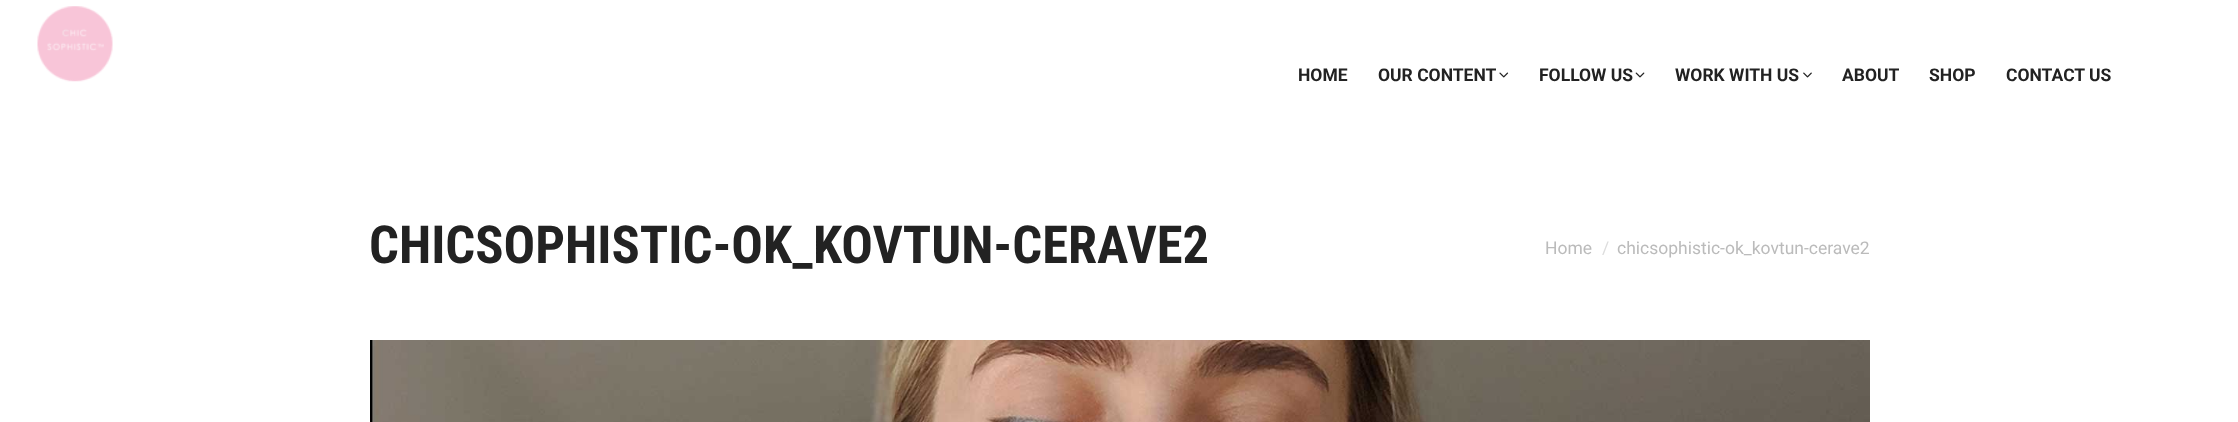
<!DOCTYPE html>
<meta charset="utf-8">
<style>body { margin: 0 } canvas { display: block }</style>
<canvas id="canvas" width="2238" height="422"></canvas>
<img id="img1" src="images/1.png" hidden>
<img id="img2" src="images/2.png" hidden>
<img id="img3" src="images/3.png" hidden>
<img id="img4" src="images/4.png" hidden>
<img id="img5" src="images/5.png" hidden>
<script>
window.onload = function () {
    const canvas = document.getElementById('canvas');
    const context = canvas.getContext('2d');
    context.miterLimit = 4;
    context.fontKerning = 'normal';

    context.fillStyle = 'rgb(255, 255, 255)';
    context.fillRect(0, 0, 2238, 422);
    context.drawImage(document.getElementById('img1'), 37, 6, 76, 76);
    context.drawImage(document.getElementById('img2'), 1499, 72, 10, 6);
    context.drawImage(document.getElementById('img3'), 1635, 72, 10, 6);
    context.drawImage(document.getElementById('img4'), 1803, 72, 9, 6);
    context.drawImage(document.getElementById('img5'), 370, 340, 1500, 82);
    context.font = 'bold 17.5px Roboto';
    context.fillStyle = 'rgb(34, 34, 34)';
    context.fillText('HOME', 1298, 81);
    context.fillText('OUR CONTENT', 1378, 81);
    context.fillText('FOLLOW US', 1539, 81);
    context.fillText('WORK WITH US', 1675, 81);
    context.fillText('ABOUT', 1842, 81);
    context.fillText('SHOP', 1929, 81);
    context.fillText('CONTACT US', 2006, 81);
    context.font = 'bold 52.5px Roboto Condensed';
    context.fillText('CHICSOPHISTIC-OK_KOVTUN-CERAVE2', 369, 263);
    context.font = '17.5px Roboto';
    context.fillStyle = 'rgb(187, 187, 187)';
    context.fillText('Home', 1545, 254);
    context.fillStyle = 'rgb(221, 221, 221)';
    context.fillText('/', 1602, 254);
    context.fillStyle = 'rgb(187, 187, 187)';
    context.fillText('chicsophistic-ok_kovtun-cerave2', 1617, 254);
};
</script>
